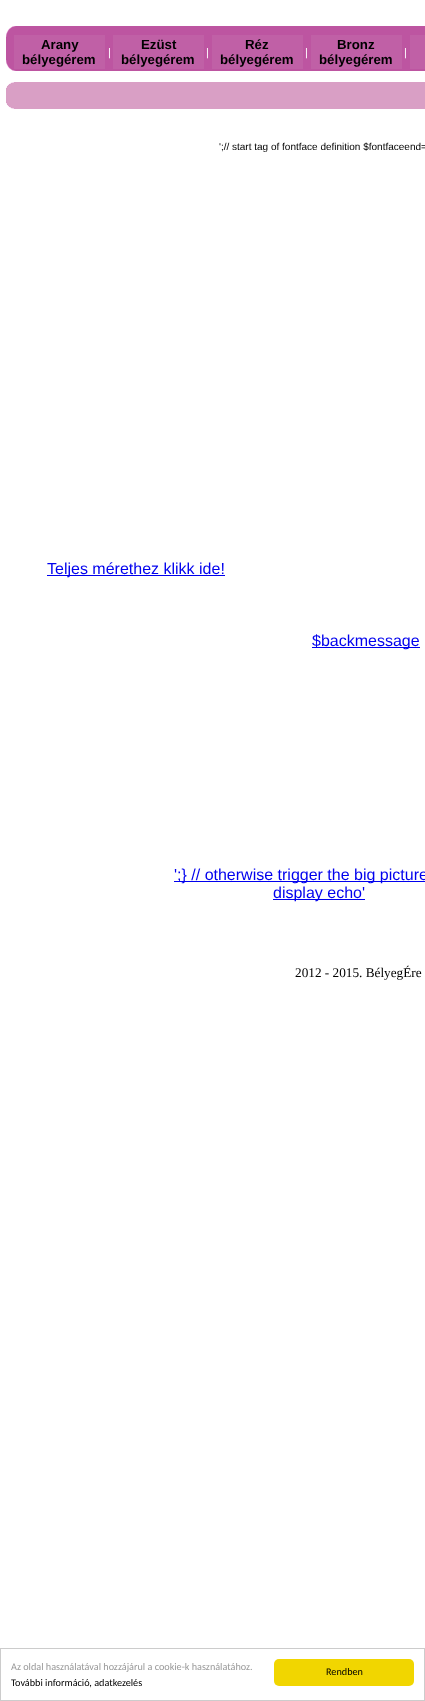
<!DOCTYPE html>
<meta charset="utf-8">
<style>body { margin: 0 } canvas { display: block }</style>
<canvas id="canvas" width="425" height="1701"></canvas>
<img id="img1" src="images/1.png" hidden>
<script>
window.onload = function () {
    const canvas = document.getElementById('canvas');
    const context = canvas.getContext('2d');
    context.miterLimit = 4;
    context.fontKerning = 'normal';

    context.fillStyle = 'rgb(255, 255, 255)';
    context.fillRect(0, 0, 425, 1701);
    context.drawImage(document.getElementById('img1'), 6, 26, 419, 83);
    context.fillStyle = 'rgb(192, 96, 166)';
    context.fillRect(14, 35, 91, 34);
    context.fillRect(113, 35, 91, 34);
    context.fillRect(212, 35, 91, 34);
    context.fillRect(311, 35, 91, 34);
    context.fillRect(410, 35, 15, 34);
    context.fillStyle = 'rgb(0, 0, 238)';
    context.fillRect(47, 575, 178, 1);
    context.fillRect(312, 647, 108, 1);
    context.fillRect(174, 881, 251, 1);
    context.fillRect(273, 899, 92, 1);
    context.strokeStyle = 'rgb(204, 204, 204)';
    context.strokeRect(0.5, 1648.5, 424, 52);
    context.fillStyle = 'rgb(241, 214, 0)';
    context.beginPath();
    context.roundRect(274, 1659, 140, 27, 5);
    context.fill();
    context.font = 'bold 13.25px Liberation Sans';
    context.fillStyle = 'rgb(0, 0, 0)';
    context.fillText('Arany', 41, 49);
    context.fillText('bélyegérem', 22, 64);
    context.font = '11px Liberation Sans';
    context.fillStyle = 'rgb(255, 255, 255)';
    context.fillText('|', 108, 56);
    context.font = 'bold 13.25px Liberation Sans';
    context.fillStyle = 'rgb(0, 0, 0)';
    context.fillText('Ezüst', 141, 49);
    context.fillText('bélyegérem', 121, 64);
    context.font = '11px Liberation Sans';
    context.fillStyle = 'rgb(255, 255, 255)';
    context.fillText('|', 206, 56);
    context.font = 'bold 13.25px Liberation Sans';
    context.fillStyle = 'rgb(0, 0, 0)';
    context.fillText('Réz', 245, 49);
    context.fillText('bélyegérem', 220, 64);
    context.font = '11px Liberation Sans';
    context.fillStyle = 'rgb(255, 255, 255)';
    context.fillText('|', 305, 56);
    context.font = 'bold 13.25px Liberation Sans';
    context.fillStyle = 'rgb(0, 0, 0)';
    context.fillText('Bronz', 337, 49);
    context.fillText('bélyegérem', 319, 64);
    context.font = '11px Liberation Sans';
    context.fillStyle = 'rgb(255, 255, 255)';
    context.fillText('|', 404, 56);
    context.font = '10px Liberation Sans';
    context.fillStyle = 'rgb(0, 0, 0)';
    context.fillText('\';// start tag of fontface definition $fontfaceend=', 219, 150);
    context.font = '16px Liberation Sans';
    context.fillStyle = 'rgb(0, 0, 238)';
    context.fillText('Teljes mérethez klikk ide!', 47, 574);
    context.fillText('$backmessage', 312, 646);
    context.fillText('\';} // otherwise trigger the big picture', 174, 880);
    context.fillText('display echo\'', 273, 898);
    context.font = '13.25px Liberation Serif';
    context.fillStyle = 'rgb(0, 0, 0)';
    context.fillText('2012 - 2015. BélyegÉre', 295, 977);
    context.font = '10.2px Carlito';
    context.fillStyle = 'rgb(153, 153, 153)';
    context.fillText('Az oldal használatával hozzájárul a cookie-k használatához.', 11, 1670);
    context.fillStyle = 'rgb(0, 0, 0)';
    context.fillText('További információ, adatkezelés', 11, 1686);
    context.fillText('Rendben', 326, 1675);
};
</script>
